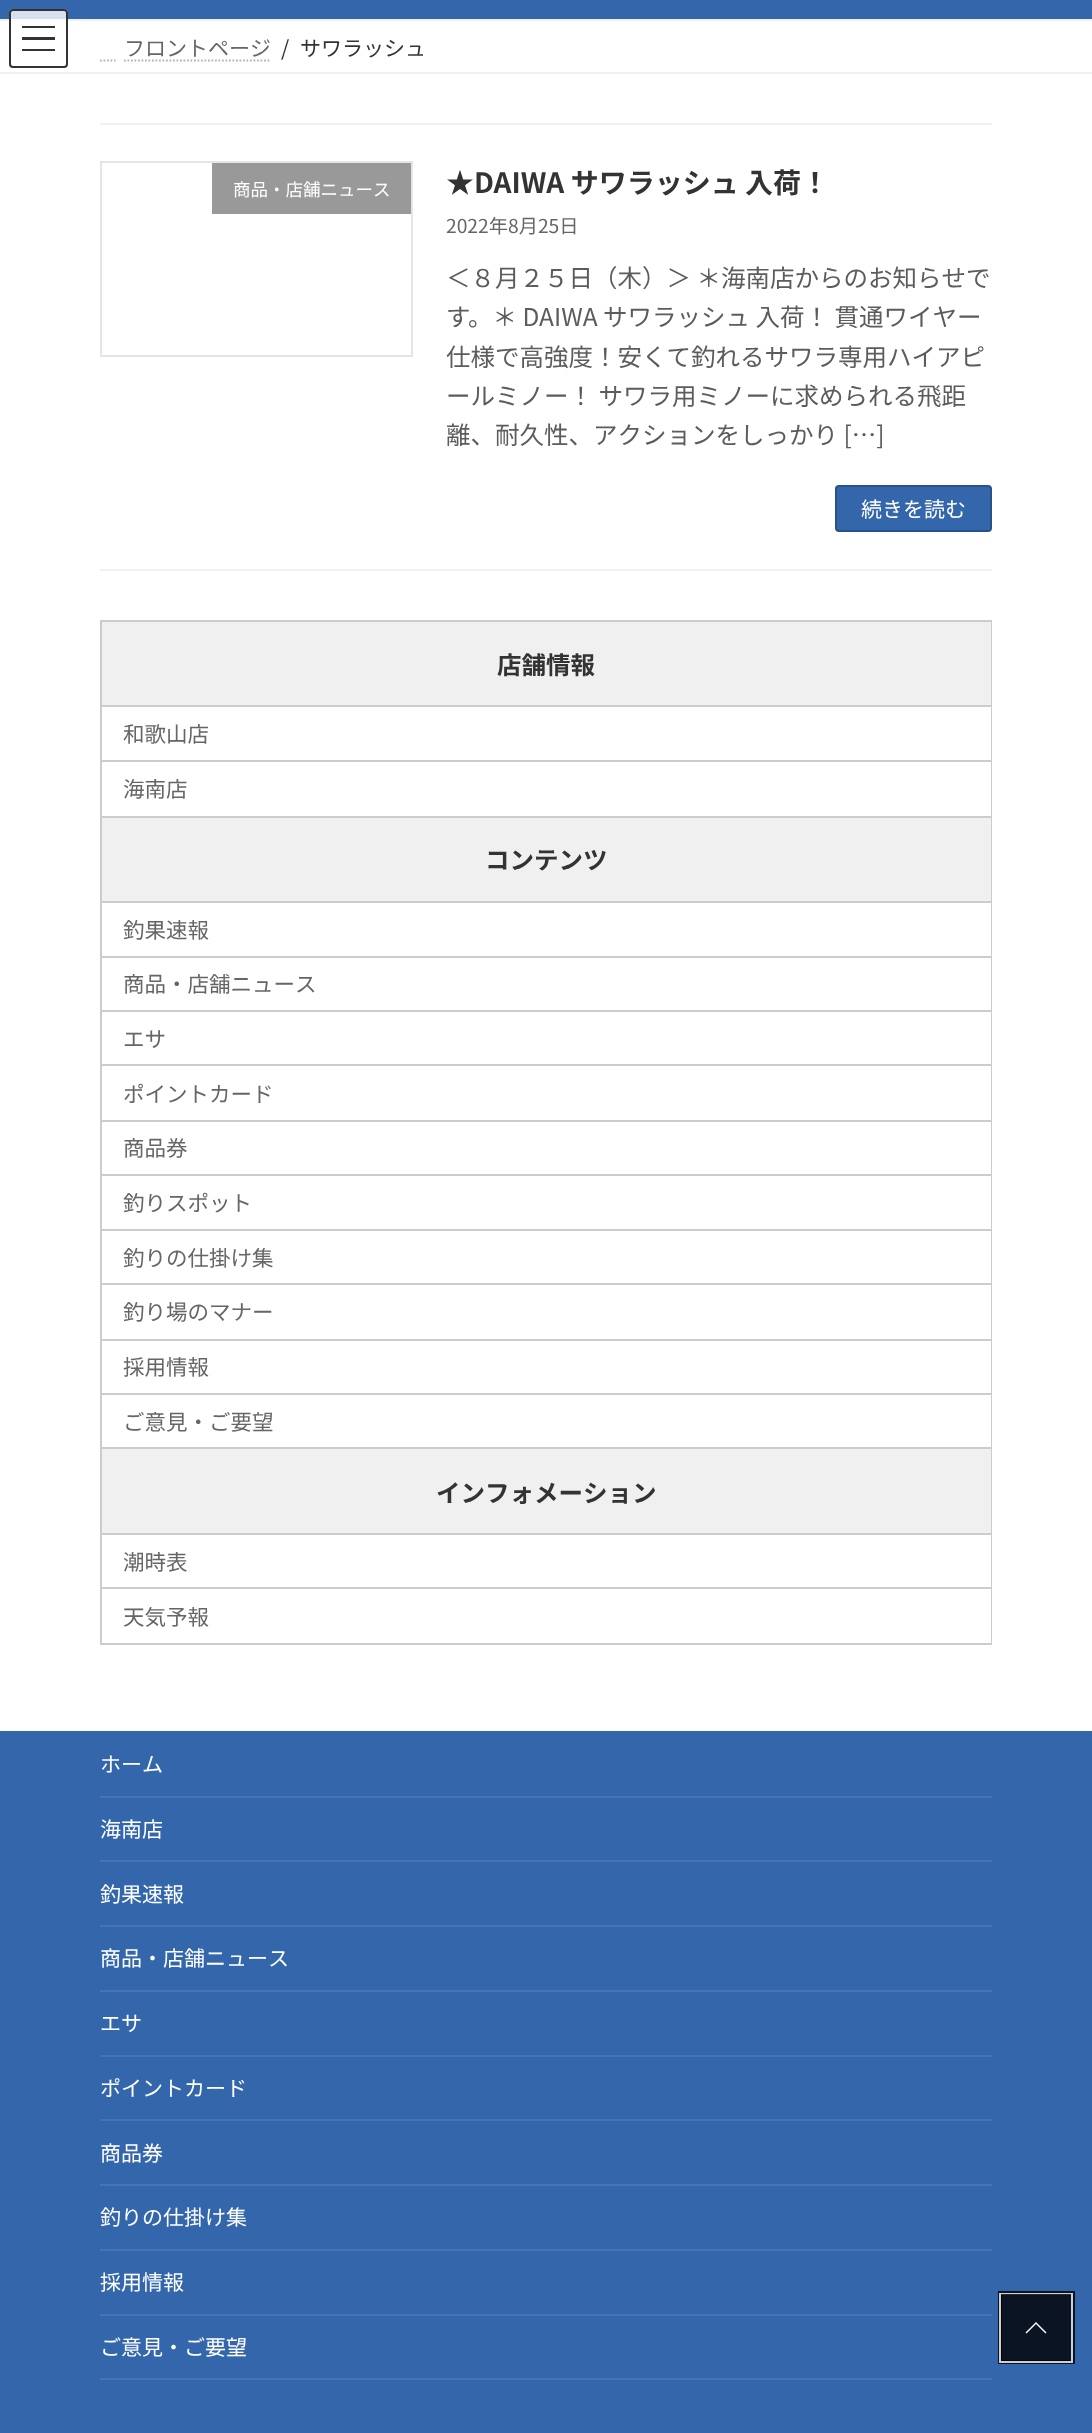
<!DOCTYPE html>
<meta charset="utf-8">
<style>body { margin: 0 } canvas { display: block }</style>
<canvas id="canvas" width="1092" height="2433"></canvas>
<script>
window.onload = function () {
    const canvas = document.getElementById('canvas');
    const context = canvas.getContext('2d');
    context.miterLimit = 4;
    context.fontKerning = 'normal';

    context.fillStyle = 'rgb(255, 255, 255)';
    context.fillRect(0, 0, 1092, 2433);
    context.fillStyle = 'rgb(51, 102, 170)';
    context.fillRect(0, 0, 1092, 19);
    context.fillStyle = 'rgb(240, 240, 240)';
    context.fillRect(0, 19, 1092, 2);
    context.fillStyle = 'rgba(255, 255, 255, 0.8)';
    context.beginPath();
    context.roundRect(9, 9, 59, 59, 4);
    context.fill();
    context.fillStyle = 'rgb(51, 51, 51)';
    context.fillRect(22, 26, 33, 2);
    context.fillRect(22, 37, 33, 3);
    context.fillRect(22, 49, 33, 2);
    context.beginPath();
    context.roundRect(10, 10, 57, 57, 3);
    context.strokeStyle = 'rgb(51, 51, 51)';
    context.lineWidth = 2;
    context.stroke();
    context.fillStyle = 'rgb(240, 240, 240)';
    context.fillRect(0, 72, 1092, 2);
    context.beginPath();
    context.moveTo(100, 60.5);
    context.lineTo(115.5, 60.5);
    context.strokeStyle = 'rgb(179, 179, 179)';
    context.lineWidth = 1.8;
    context.setLineDash([1.75, 1.75]);
    context.stroke();
    context.beginPath();
    context.moveTo(124, 60.5);
    context.lineTo(270.5, 60.5);
    context.stroke();
    context.fillRect(100, 123, 892, 2);
    context.fillRect(100, 569, 892, 2);
    context.strokeStyle = 'rgb(229, 229, 229)';
    context.lineWidth = 2;
    context.setLineDash([]);
    context.strokeRect(101, 162, 311, 194);
    context.fillStyle = 'rgb(153, 153, 153)';
    context.fillRect(212, 163, 199, 51);
    context.fillStyle = 'rgb(51, 102, 170)';
    context.beginPath();
    context.roundRect(836, 486, 155, 45, 3);
    context.fill();
    context.strokeStyle = 'rgb(41, 82, 136)';
    context.stroke();
    context.fillStyle = 'rgb(204, 204, 204)';
    context.fillRect(100, 620, 892, 2);
    context.fillRect(991, 620, 1, 1025);
    context.fillRect(100, 1643, 892, 2);
    context.fillRect(100, 620, 2, 1025);
    context.fillStyle = 'rgb(240, 240, 240)';
    context.fillRect(102, 622, 889, 83);
    context.fillStyle = 'rgb(204, 204, 204)';
    context.fillRect(100, 705, 892, 2);
    context.fillRect(100, 760, 892, 2);
    context.fillStyle = 'rgb(240, 240, 240)';
    context.fillRect(102, 818, 889, 83);
    context.fillStyle = 'rgb(204, 204, 204)';
    context.fillRect(100, 816, 892, 2);
    context.fillRect(100, 901, 892, 2);
    context.fillRect(100, 956, 892, 2);
    context.fillRect(100, 1010, 892, 2);
    context.fillRect(100, 1064, 892, 2);
    context.fillRect(100, 1120, 892, 2);
    context.fillRect(100, 1174, 892, 2);
    context.fillRect(100, 1229, 892, 2);
    context.fillRect(100, 1283, 892, 2);
    context.fillRect(100, 1339, 892, 2);
    context.fillRect(100, 1393, 892, 2);
    context.fillStyle = 'rgb(240, 240, 240)';
    context.fillRect(102, 1449, 889, 84);
    context.fillStyle = 'rgb(204, 204, 204)';
    context.fillRect(100, 1447, 892, 2);
    context.fillRect(100, 1533, 892, 2);
    context.fillRect(100, 1587, 892, 2);
    context.fillStyle = 'rgb(51, 102, 170)';
    context.fillRect(0, 1731, 1092, 702);
    context.fillStyle = 'rgb(71, 117, 179)';
    context.fillRect(100, 1796, 892, 2);
    context.fillRect(100, 1860, 892, 2);
    context.fillRect(100, 1925, 892, 2);
    context.fillRect(100, 1990, 892, 2);
    context.fillRect(100, 2055, 892, 2);
    context.fillRect(100, 2119, 892, 2);
    context.fillRect(100, 2184, 892, 2);
    context.fillRect(100, 2249, 892, 2);
    context.fillRect(100, 2314, 892, 2);
    context.fillRect(100, 2378, 892, 2);
    context.strokeStyle = 'rgb(10, 20, 34)';
    context.lineWidth = 4;
    context.strokeRect(1000, 2293, 73, 69);
    context.strokeStyle = 'rgb(206, 208, 211)';
    context.lineWidth = 2;
    context.strokeRect(1000, 2294, 72, 68);
    context.fillStyle = 'rgba(0, 0, 0, 0.8)';
    context.fillRect(1001, 2294, 70, 67);
    context.fillStyle = 'rgb(255, 255, 255)';
    context.beginPath();
    context.moveTo(1046.5, 2332.5);
    context.lineTo(1045.5, 2333.5);
    context.lineTo(1036, 2324);
    context.lineTo(1026.5, 2333.5);
    context.lineTo(1025.5, 2332.5);
    context.lineTo(1036, 2322);
    context.closePath();
    context.fill();
    context.font = '21px Noto Sans JP';
    context.fillStyle = 'rgb(102, 102, 102)';
    context.fillText('フロントページ', 124, 56);
    context.fillStyle = 'rgb(51, 51, 51)';
    context.fillText('/', 281, 56);
    context.fillText('サワラッシュ', 300, 56);
    context.font = '17.5px Noto Sans JP';
    context.fillStyle = 'rgb(255, 255, 255)';
    context.fillText('商品・店舗ニュース', 233, 196);
    context.font = 'bold 28px Noto Sans JP';
    context.fillStyle = 'rgb(51, 51, 51)';
    context.fillText('★DAIWA サワラッシュ 入荷！', 446, 193);
    context.font = '19.25px Noto Sans JP';
    context.fillStyle = 'rgb(102, 102, 102)';
    context.fillText('2022年8月25日', 446, 233);
    context.font = '24.5px Noto Sans JP';
    context.fillStyle = 'rgb(92, 92, 92)';
    context.fillText('＜８月２５日（木）＞ ＊海南店からのお知らせで', 446, 287);
    context.fillText('す。＊ DAIWA サワラッシュ 入荷！ 貫通ワイヤー', 446, 326);
    context.fillText('仕様で高強度！安くて釣れるサワラ専用ハイアピ', 446, 366);
    context.fillText('ールミノー！ サワラ用ミノーに求められる飛距', 446, 405);
    context.fillText('離、耐久性、アクションをしっかり […]', 446, 444);
    context.font = '21px Noto Sans JP';
    context.fillStyle = 'rgb(255, 255, 255)';
    context.fillText('続きを読む', 861, 517);
    context.font = 'bold 24.5px Noto Sans JP';
    context.fillStyle = 'rgb(51, 51, 51)';
    context.fillText('店舗情報', 497, 674);
    context.font = '21.5px Noto Sans JP';
    context.fillStyle = 'rgb(102, 102, 102)';
    context.fillText('和歌山店', 123, 742);
    context.fillText('海南店', 123, 797);
    context.font = 'bold 24.5px Noto Sans JP';
    context.fillStyle = 'rgb(51, 51, 51)';
    context.fillText('コンテンツ', 485, 869);
    context.font = '21.5px Noto Sans JP';
    context.fillStyle = 'rgb(102, 102, 102)';
    context.fillText('釣果速報', 123, 938);
    context.fillText('商品・店舗ニュース', 123, 992);
    context.fillText('エサ', 123, 1047);
    context.fillText('ポイントカード', 123, 1102);
    context.fillText('商品券', 123, 1156);
    context.fillText('釣りスポット', 123, 1211);
    context.fillText('釣りの仕掛け集', 123, 1266);
    context.fillText('釣り場のマナー', 123, 1320);
    context.fillText('採用情報', 123, 1375);
    context.fillText('ご意見・ご要望', 123, 1430);
    context.font = 'bold 24.5px Noto Sans JP';
    context.fillStyle = 'rgb(51, 51, 51)';
    context.fillText('インフォメーション', 436, 1502);
    context.font = '21.5px Noto Sans JP';
    context.fillStyle = 'rgb(102, 102, 102)';
    context.fillText('潮時表', 123, 1570);
    context.fillText('天気予報', 123, 1625);
    context.font = '21px Noto Sans JP';
    context.fillStyle = 'rgb(255, 255, 255)';
    context.fillText('ホーム', 100, 1772);
    context.fillText('海南店', 100, 1837);
    context.fillText('釣果速報', 100, 1902);
    context.fillText('商品・店舗ニュース', 100, 1966);
    context.fillText('エサ', 100, 2031);
    context.fillText('ポイントカード', 100, 2096);
    context.fillText('商品券', 100, 2161);
    context.fillText('釣りの仕掛け集', 100, 2225);
    context.fillText('採用情報', 100, 2290);
    context.fillText('ご意見・ご要望', 100, 2355);
};
</script>
